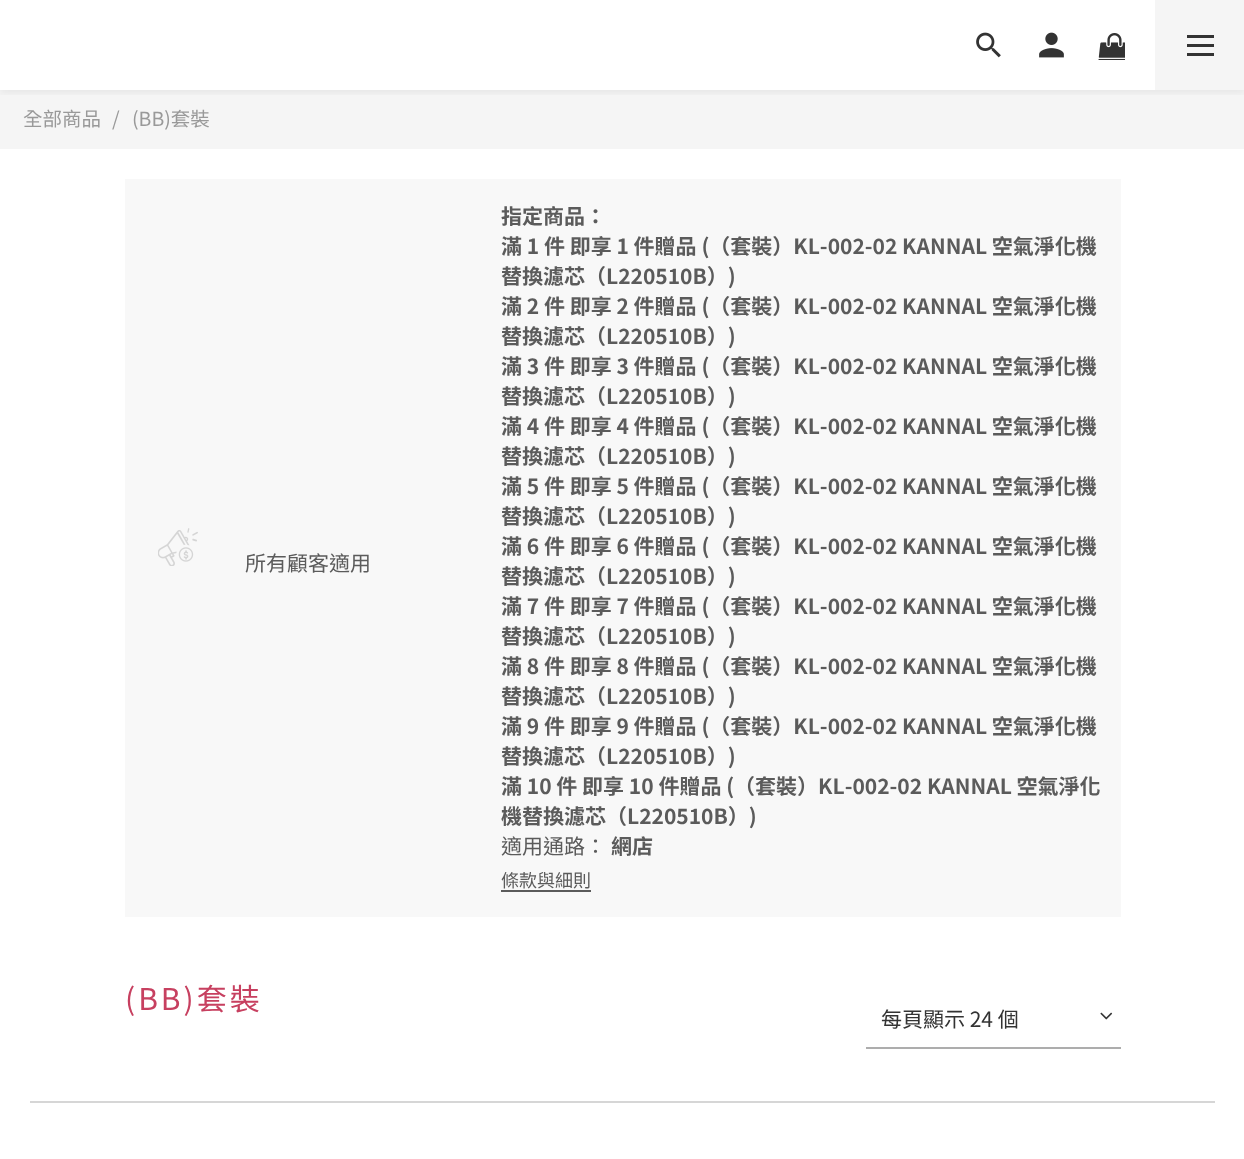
<!DOCTYPE html>
<meta charset="utf-8">
<style>body { margin: 0 } canvas { display: block }</style>
<canvas id="canvas" width="1244" height="1159"></canvas>
<img id="img1" src="images/1.png" hidden>
<img id="img2" src="images/2.png" hidden>
<img id="img3" src="images/3.png" hidden>
<img id="img4" src="images/4.png" hidden>
<img id="img5" src="images/5.png" hidden>
<script>
window.onload = function () {
    const canvas = document.getElementById('canvas');
    const context = canvas.getContext('2d');
    context.miterLimit = 4;
    context.fontKerning = 'none';

    context.fillStyle = 'rgb(255, 255, 255)';
    context.fillRect(0, 0, 1244, 1159);
    context.fillStyle = 'rgb(245, 245, 245)';
    context.fillRect(0, 90, 1244, 59);
    context.save();
    context.beginPath();
    context.rect(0, 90, 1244, 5);
    context.clip();
    context.fillStyle = 'rgba(0, 0, 0, 0.06)';
    context.filter = 'blur(4.5px)';
    context.beginPath();
    context.rect(0, 3, 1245, 90);
    context.fill();
    context.filter = 'none';
    context.restore();
    context.drawImage(document.getElementById('img1'), 976, 32, 25, 26);
    context.drawImage(document.getElementById('img2'), 1039, 32, 25, 26);
    context.drawImage(document.getElementById('img3'), 1098, 33, 27, 27);
    context.fillRect(1155, 0, 89, 90);
    context.fillStyle = 'rgb(51, 51, 51)';
    context.fillRect(1187, 44, 27, 3);
    context.fillRect(1187, 35, 27, 3);
    context.fillRect(1187, 53, 27, 3);
    context.fillStyle = 'rgb(248, 248, 248)';
    context.fillRect(125, 179, 996, 738);
    context.drawImage(document.getElementById('img4'), 158, 528, 40, 38);
    context.fillStyle = 'rgb(91, 91, 91)';
    context.fillRect(501, 890, 90, 2);
    context.fillStyle = 'rgb(173, 173, 173)';
    context.fillRect(866, 1047, 255, 2);
    context.drawImage(document.getElementById('img5'), 1100, 1012, 13, 8);
    context.fillStyle = 'rgb(214, 214, 214)';
    context.fillRect(30, 1101, 1185, 2);
    context.font = '19.5px Noto Sans TC';
    context.fillStyle = 'rgb(153, 153, 153)';
    context.fillText('全部商品', 23, 126);
    context.fillText('/', 112, 126);
    context.fillText('(BB)套裝', 132, 126);
    context.font = '21px Noto Sans TC';
    context.fillStyle = 'rgb(91, 91, 91)';
    context.fillText('所有顧客適用', 245, 571);
    context.font = 'bold 21px Noto Sans TC';
    context.fillText('指定商品：', 501, 224);
    context.fillText('滿 1 件 即享 1 件贈品 (（套裝）KL-002-02 KANNAL 空氣淨化機', 501, 254);
    context.fillText('替換濾芯（L220510B）)', 501, 284);
    context.fillText('滿 2 件 即享 2 件贈品 (（套裝）KL-002-02 KANNAL 空氣淨化機', 501, 314);
    context.fillText('替換濾芯（L220510B）)', 501, 344);
    context.fillText('滿 3 件 即享 3 件贈品 (（套裝）KL-002-02 KANNAL 空氣淨化機', 501, 374);
    context.fillText('替換濾芯（L220510B）)', 501, 404);
    context.fillText('滿 4 件 即享 4 件贈品 (（套裝）KL-002-02 KANNAL 空氣淨化機', 501, 434);
    context.fillText('替換濾芯（L220510B）)', 501, 464);
    context.fillText('滿 5 件 即享 5 件贈品 (（套裝）KL-002-02 KANNAL 空氣淨化機', 501, 494);
    context.fillText('替換濾芯（L220510B）)', 501, 524);
    context.fillText('滿 6 件 即享 6 件贈品 (（套裝）KL-002-02 KANNAL 空氣淨化機', 501, 554);
    context.fillText('替換濾芯（L220510B）)', 501, 584);
    context.fillText('滿 7 件 即享 7 件贈品 (（套裝）KL-002-02 KANNAL 空氣淨化機', 501, 614);
    context.fillText('替換濾芯（L220510B）)', 501, 644);
    context.fillText('滿 8 件 即享 8 件贈品 (（套裝）KL-002-02 KANNAL 空氣淨化機', 501, 674);
    context.fillText('替換濾芯（L220510B）)', 501, 704);
    context.fillText('滿 9 件 即享 9 件贈品 (（套裝）KL-002-02 KANNAL 空氣淨化機', 501, 734);
    context.fillText('替換濾芯（L220510B）)', 501, 764);
    context.fillText('滿 10 件 即享 10 件贈品 (（套裝）KL-002-02 KANNAL 空氣淨化', 501, 794);
    context.fillText('機替換濾芯（L220510B）)', 501, 824);
    context.font = '21px Noto Sans TC';
    context.fillText('適用通路：', 501, 854);
    context.font = 'bold 21px Noto Sans TC';
    context.fillText('網店', 611, 854);
    context.font = '18px Noto Sans TC';
    context.fillText('條款與細則', 501, 887);
    context.letterSpacing = '3px';
    context.font = '30px Noto Sans TC';
    context.fillStyle = 'rgb(199, 64, 96)';
    context.fillText('(BB)套裝', 125, 1010);
    context.letterSpacing = '0px';
    context.font = '21px Noto Sans TC';
    context.fillStyle = 'rgb(51, 51, 51)';
    context.fillText('每頁顯示 24 個', 881, 1027);
};
</script>
